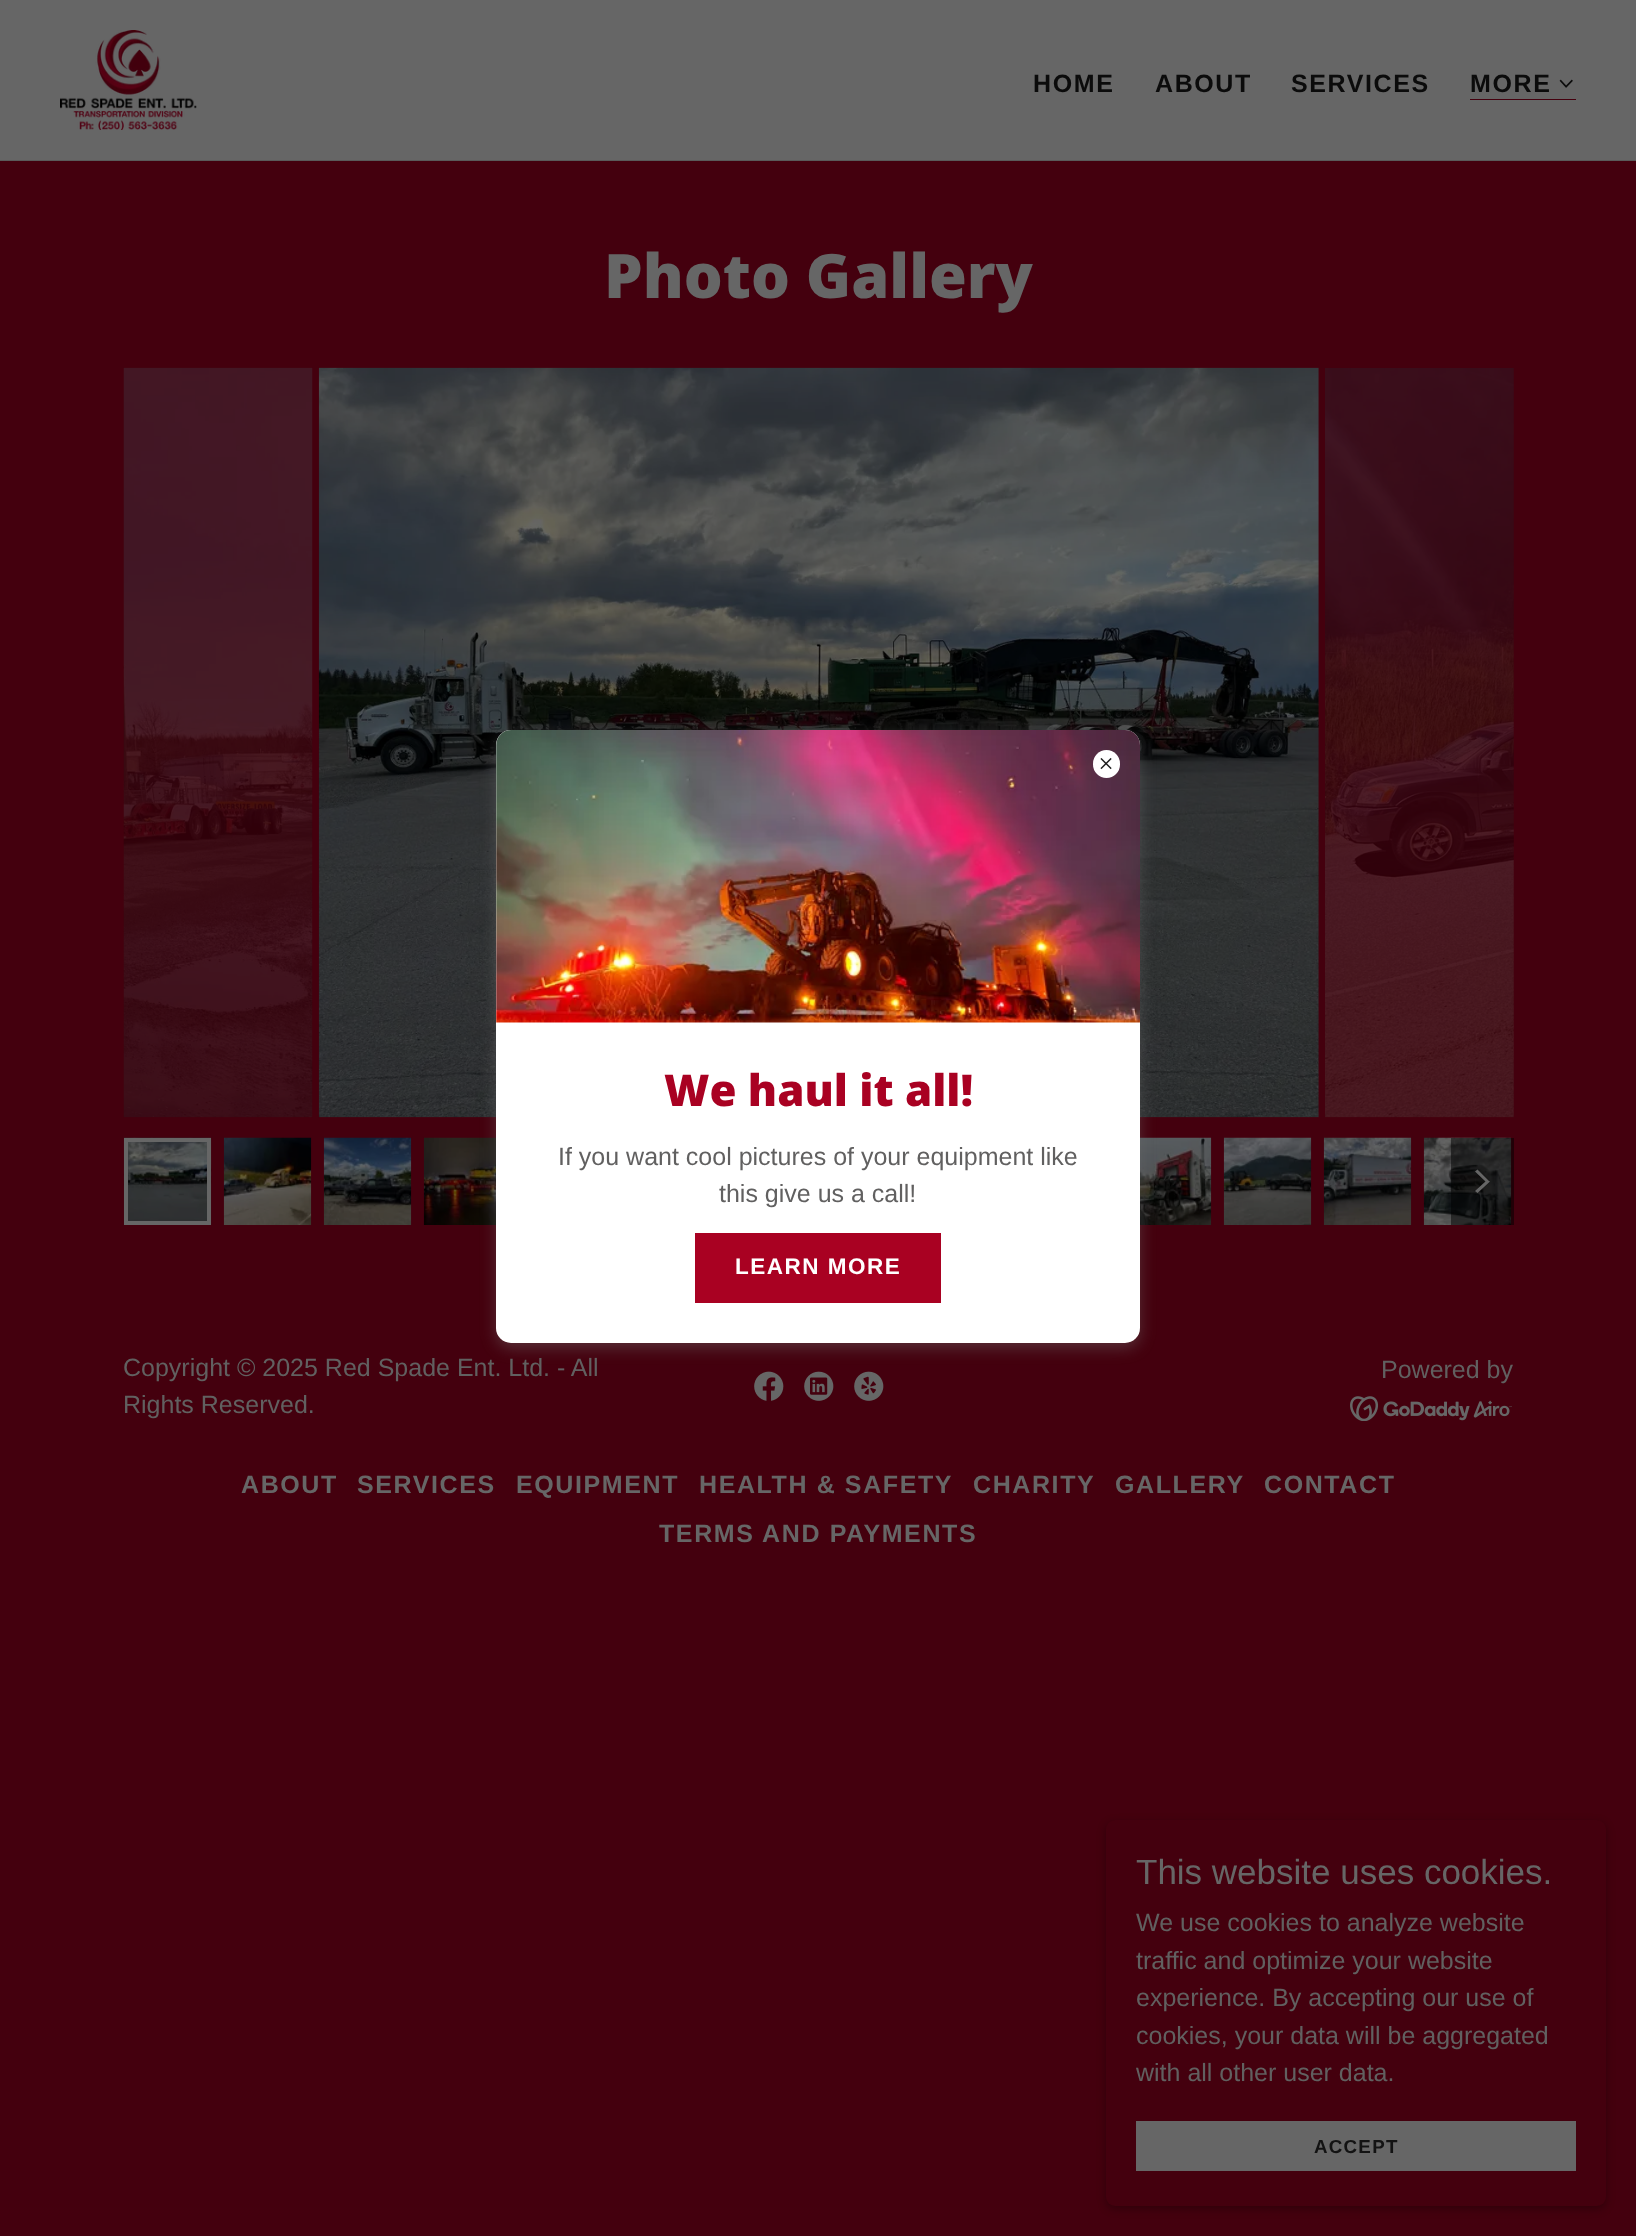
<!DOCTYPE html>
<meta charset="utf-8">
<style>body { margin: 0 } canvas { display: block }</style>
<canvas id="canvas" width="1636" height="2236"></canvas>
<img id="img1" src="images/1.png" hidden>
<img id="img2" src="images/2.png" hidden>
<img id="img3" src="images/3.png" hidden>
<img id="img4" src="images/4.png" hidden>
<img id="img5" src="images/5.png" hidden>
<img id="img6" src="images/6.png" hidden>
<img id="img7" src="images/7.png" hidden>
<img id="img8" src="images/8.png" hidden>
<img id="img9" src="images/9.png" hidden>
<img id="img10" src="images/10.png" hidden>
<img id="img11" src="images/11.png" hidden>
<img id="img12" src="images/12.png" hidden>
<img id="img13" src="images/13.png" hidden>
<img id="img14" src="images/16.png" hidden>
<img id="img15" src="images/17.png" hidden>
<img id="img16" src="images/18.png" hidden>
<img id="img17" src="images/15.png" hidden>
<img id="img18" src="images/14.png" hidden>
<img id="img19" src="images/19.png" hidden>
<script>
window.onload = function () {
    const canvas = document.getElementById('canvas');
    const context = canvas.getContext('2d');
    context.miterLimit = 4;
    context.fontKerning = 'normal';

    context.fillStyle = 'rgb(68, 0, 14)';
    context.fillRect(0, 0, 1636, 2236);
    context.fillStyle = 'rgb(102, 102, 102)';
    context.fillRect(0, 0, 1636, 160);
    context.drawImage(document.getElementById('img1'), 60, 30, 137, 100);
    context.fillStyle = 'rgb(68, 0, 14)';
    context.fillRect(1470, 99, 106, 1);
    context.drawImage(document.getElementById('img2'), 1559, 79, 14, 9);
    context.fillStyle = 'rgb(90, 90, 90)';
    context.fillRect(0, 160, 1636, 1);
    context.drawImage(document.getElementById('img3'), 123, 367, 190, 751);
    context.drawImage(document.getElementById('img4'), 318, 367, 1001, 751);
    context.drawImage(document.getElementById('img5'), 1325, 368, 189, 750);
    context.drawImage(document.getElementById('img6'), 123, 1137, 89, 88);
    context.strokeStyle = 'rgb(102, 102, 102)';
    context.lineWidth = 4;
    context.strokeRect(126, 1140, 83, 83);
    context.drawImage(document.getElementById('img7'), 223, 1137, 89, 88);
    context.drawImage(document.getElementById('img8'), 323, 1137, 89, 88);
    context.drawImage(document.getElementById('img9'), 423, 1137, 73, 88);
    context.drawImage(document.getElementById('img10'), 1140, 1137, 72, 88);
    context.drawImage(document.getElementById('img11'), 1223, 1137, 89, 88);
    context.drawImage(document.getElementById('img12'), 1323, 1137, 89, 88);
    context.drawImage(document.getElementById('img13'), 1423, 1137, 89, 88);
    context.fillStyle = 'rgba(0, 0, 0, 0.5)';
    context.fillRect(1451, 1138, 63, 87);
    context.fillStyle = 'rgb(102, 102, 102)';
    context.beginPath();
    context.moveTo(1477.5, 1169.5);
    context.lineTo(1475, 1171.5);
    context.lineTo(1485.5, 1181.5);
    context.lineTo(1475, 1191);
    context.lineTo(1477.5, 1193);
    context.lineTo(1490, 1181.5);
    context.lineTo(1489, 1181);
    context.closePath();
    context.fill('evenodd');
    context.drawImage(document.getElementById('img14'), 754, 1371, 30, 30);
    context.drawImage(document.getElementById('img15'), 804, 1371, 30, 30);
    context.drawImage(document.getElementById('img16'), 854, 1371, 30, 30);
    context.fillStyle = 'rgba(117, 117, 117, 0.4)';
    context.filter = 'blur(7.5px)';
    context.beginPath();
    context.roundRect(496, 735, 644, 613, 15);
    context.fill();
    context.filter = 'none';
    context.fillStyle = 'rgb(255, 255, 255)';
    context.beginPath();
    context.roundRect(496, 730, 644, 613, 15);
    context.fill();
    context.drawImage(document.getElementById('img17'), 496, 730, 644, 293);
    context.beginPath();
    context.roundRect(1093, 750, 27, 28, 13.5);
    context.fill();
    context.drawImage(document.getElementById('img18'), 1100, 758, 12, 12);
    context.fillStyle = 'rgb(169, 1, 34)';
    context.fillRect(695, 1233, 246, 70);
    context.drawImage(document.getElementById('img19'), 1350, 1396, 162, 25);
    context.fillStyle = 'rgba(0, 0, 0, 0.3)';
    context.filter = 'blur(4px)';
    context.beginPath();
    context.roundRect(1106, 1823, 500, 386, 9);
    context.fill();
    context.filter = 'none';
    context.fillStyle = 'rgb(68, 0, 14)';
    context.beginPath();
    context.roundRect(1106, 1820, 500, 386, 9);
    context.fill();
    context.fillStyle = 'rgb(102, 102, 102)';
    context.fillRect(1136, 2121, 440, 50);
    context.letterSpacing = '1.6px';
    context.font = 'bold 25px Liberation Sans';
    context.fillStyle = 'rgb(11, 11, 11)';
    context.fillText('HOME', 1033, 92);
    context.fillText('ABOUT', 1155, 92);
    context.fillText('SERVICES', 1291, 92);
    context.fillText('MORE', 1470, 92);
    context.letterSpacing = '0px';
    context.font = '800 61.25px Open Sans';
    context.fillStyle = 'rgb(102, 102, 102)';
    context.fillText('Photo Gallery', 604, 298);
    context.font = '800 43.75px Open Sans';
    context.fillStyle = 'rgb(169, 1, 34)';
    context.fillText('We haul it all!', 664, 1106);
    context.font = '25px Liberation Sans';
    context.fillStyle = 'rgb(97, 96, 96)';
    context.fillText('If you want cool pictures of your equipment like', 558, 1165);
    context.fillText('this give us a call!', 719, 1202);
    context.letterSpacing = '1.5px';
    context.font = 'bold 22.5px Liberation Sans';
    context.fillStyle = 'rgb(255, 255, 255)';
    context.fillText('LEARN MORE', 735, 1274);
    context.letterSpacing = '0px';
    context.font = '25px Liberation Sans';
    context.fillStyle = 'rgb(97, 96, 96)';
    context.fillText('Copyright © 2025 Red Spade Ent. Ltd. - All', 123, 1376);
    context.fillText('Rights Reserved.', 123, 1413);
    context.fillText('Powered by', 1381, 1378);
    context.letterSpacing = '1.6px';
    context.font = 'bold 25px Liberation Sans';
    context.fillStyle = 'rgb(102, 102, 102)';
    context.fillText('ABOUT', 241, 1493);
    context.fillText('SERVICES', 357, 1493);
    context.fillText('EQUIPMENT', 516, 1493);
    context.fillText('HEALTH & SAFETY', 699, 1493);
    context.fillText('CHARITY', 973, 1493);
    context.fillText('GALLERY', 1115, 1493);
    context.fillText('CONTACT', 1264, 1493);
    context.fillText('TERMS AND PAYMENTS', 659, 1542);
    context.letterSpacing = '0px';
    context.font = '35px Liberation Sans';
    context.fillText('This website uses cookies.', 1136, 1884);
    context.font = '25px Liberation Sans';
    context.fillStyle = 'rgb(97, 96, 96)';
    context.fillText('We use cookies to analyze website', 1136, 1931);
    context.fillText('traffic and optimize your website', 1136, 1969);
    context.fillText('experience. By accepting our use of', 1136, 2006);
    context.fillText('cookies, your data will be aggregated', 1136, 2044);
    context.fillText('with all other user data.', 1136, 2081);
    context.letterSpacing = '1.25px';
    context.font = 'bold 18.75px Liberation Sans';
    context.fillStyle = 'rgb(19, 19, 19)';
    context.fillText('ACCEPT', 1314, 2153);
};
</script>
